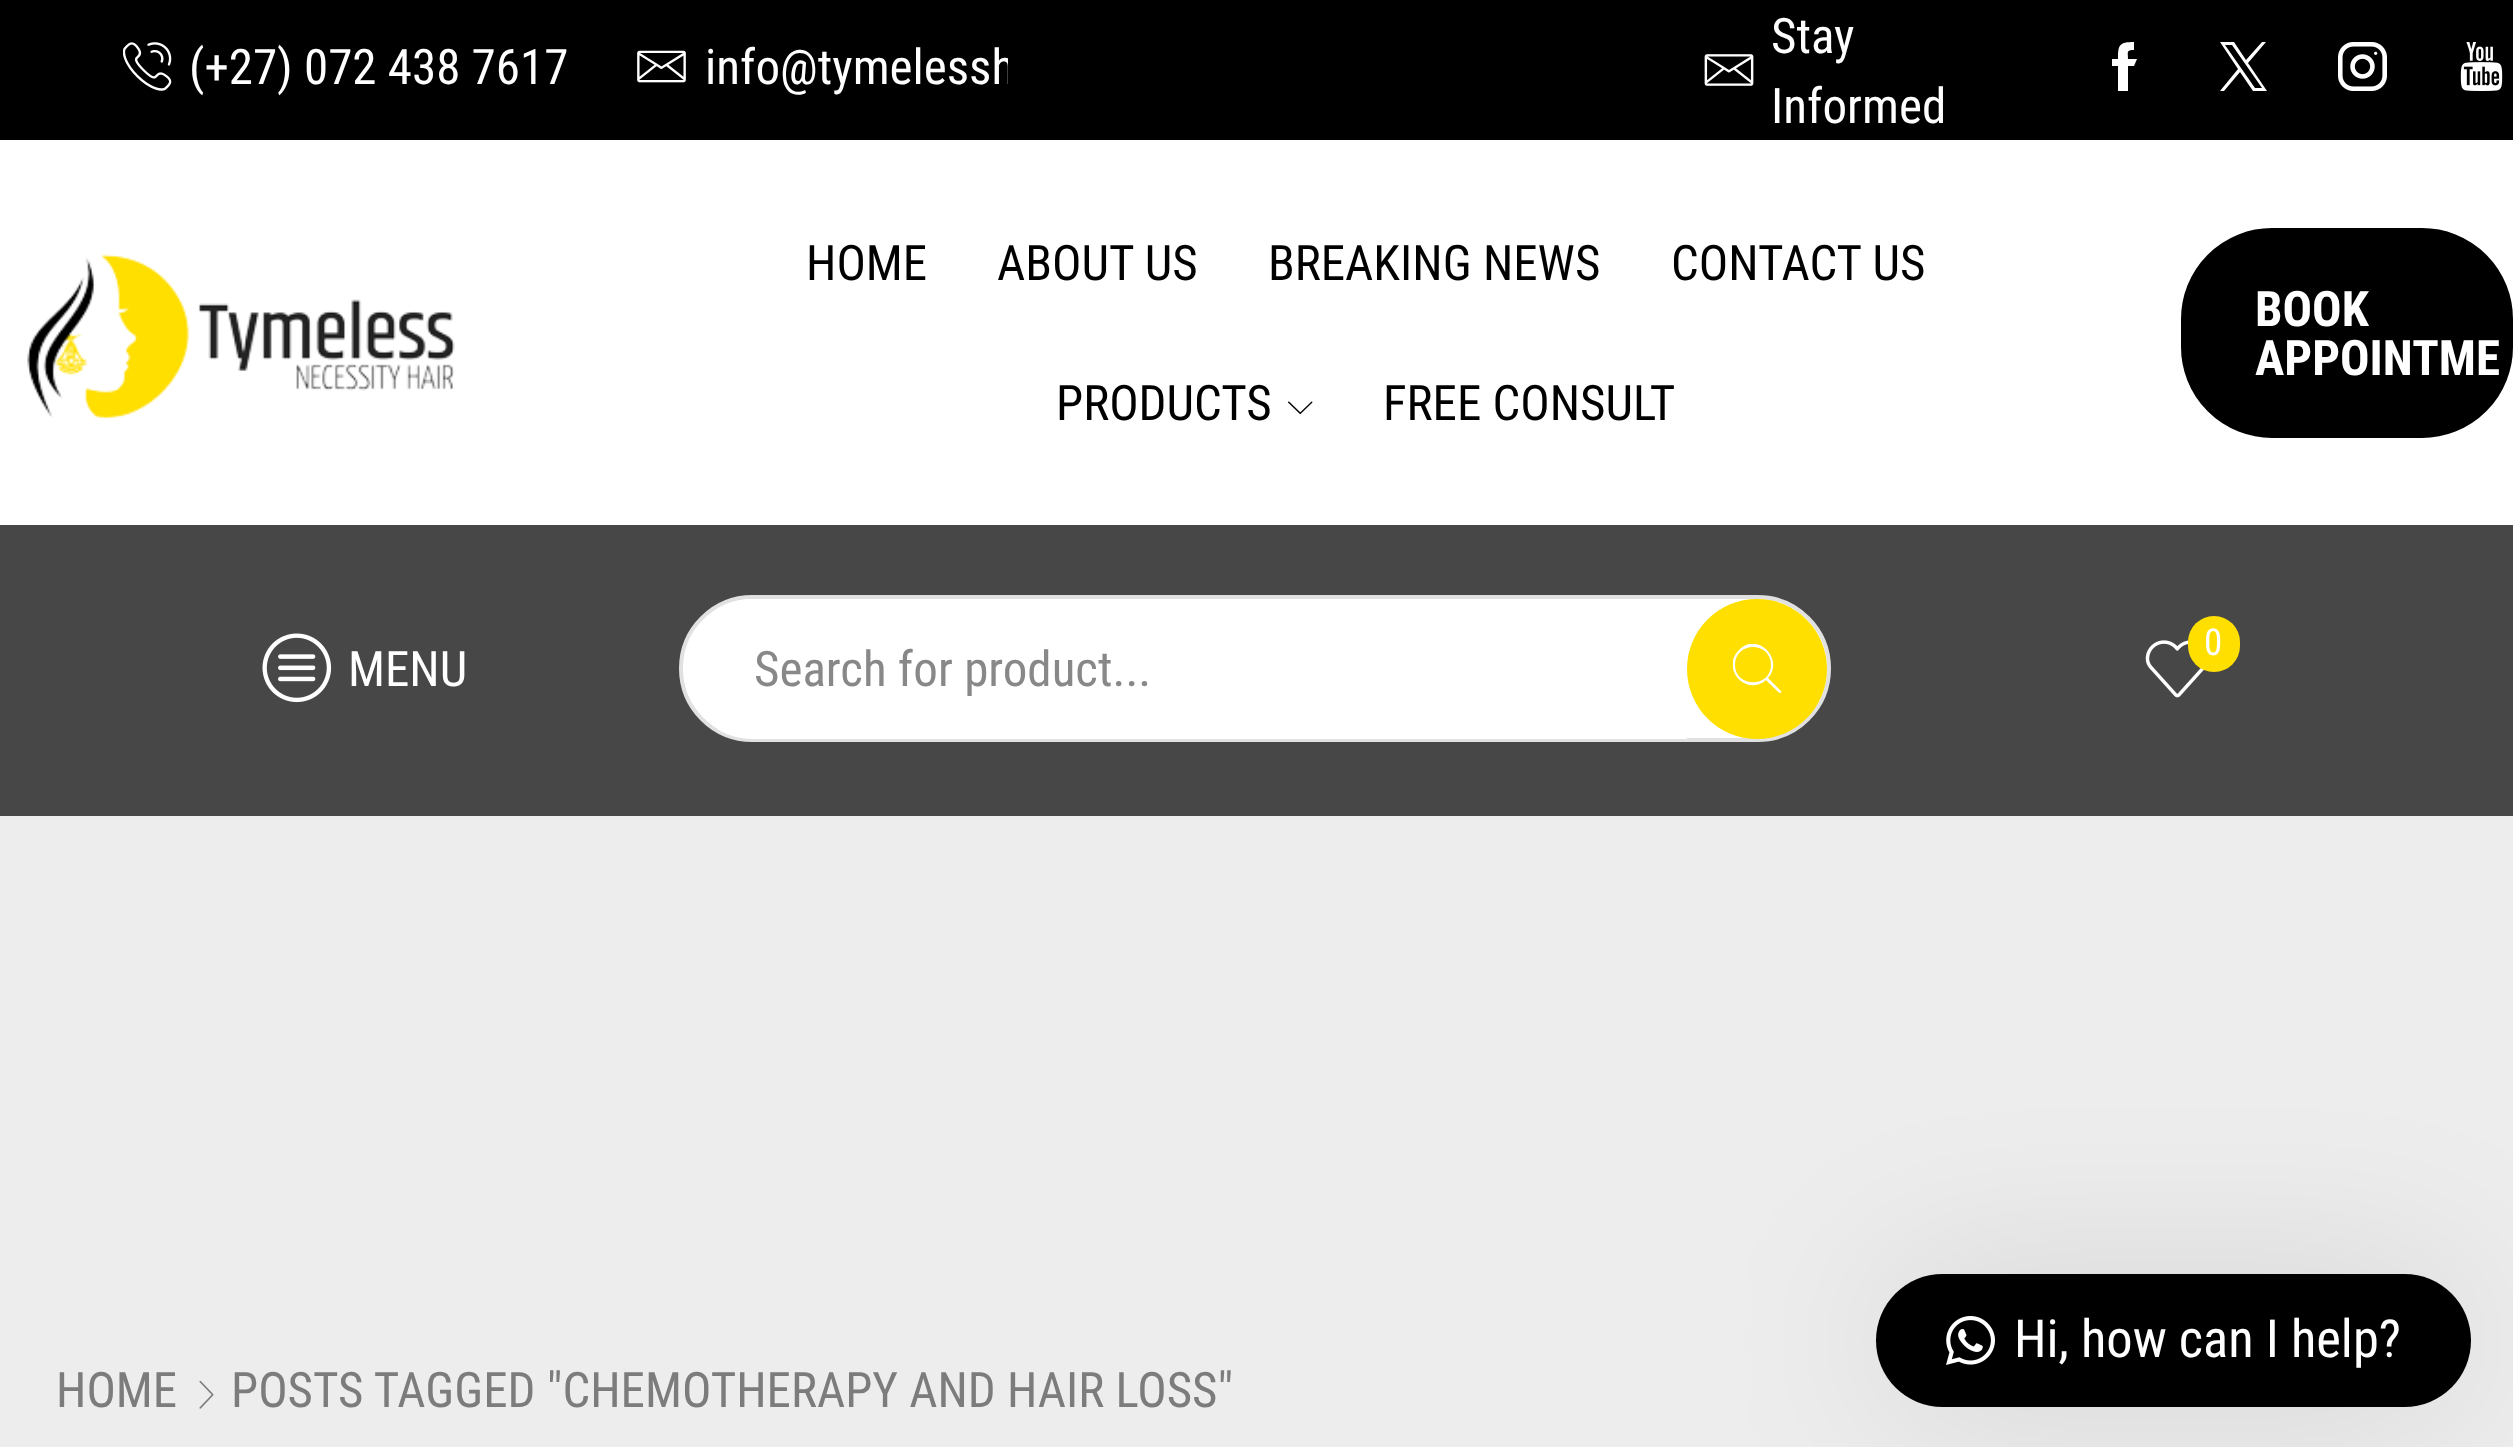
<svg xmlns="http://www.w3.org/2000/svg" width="2513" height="1447">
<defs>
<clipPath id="clip1"><rect x="123" y="32" width="885" height="70"/></clipPath>
<clipPath id="clip2"><rect x="683" y="599" width="1144" height="140" rx="70"/></clipPath>
<clipPath id="clip3"><rect x="1733" y="644" width="49" height="49"/></clipPath>
</defs>
<rect width="100%" height="100%" fill="#fff"/>
<rect width="2513" height="140" fill="#000"/>
<image x="123" y="42" width="49" height="49" href="media/1.png"/>
<text x="189" y="84" style="font-family:'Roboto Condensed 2';font-size:49px;fill:#fff">(+27) 072 438 7617</text>
<image x="637" y="50" width="49" height="33" href="media/2.png"/>
<g clip-path="url(#clip1)">
<text x="705" y="84" style="font-family:'Roboto Condensed 2';font-size:49px;fill:#fff">info@tymelessh</text>
</g>
<image x="1704" y="54" width="50" height="32" href="media/3.png"/>
<text x="1771" y="53" style="font-family:'Roboto Condensed 2';font-size:49px;fill:#fff">Stay</text>
<text x="1771" y="123" style="font-family:'Roboto Condensed 2';font-size:49px;fill:#fff">Informed</text>
<path d="M2128 59c0-7-2-9 6-9v-8c-15 0-16 3-16 17h-6v7h6v25h10v-25h6l3-7z" fill="#fff"/>
<path d="M2220 91h4l16-19l13 19h14l-19-28l18-21h-4l-16 18l-12-18h-14l18 27zm5-46h7l30 43h-7z" fill="#fff"/>
<image x="2338" y="42" width="49" height="49" href="media/4.png"/>
<image x="2460" y="42" width="43" height="49" href="media/5.png"/>
<image x="27" y="254" width="428" height="164" href="media/6.png"/>
<text x="806" y="280" style="font-family:'Roboto Condensed 2';font-size:49px;fill:#000">HOME</text>
<text x="997" y="280" style="font-family:'Roboto Condensed 2';font-size:49px;fill:#000">ABOUT US</text>
<text x="1268" y="280" style="font-family:'Roboto Condensed 2';font-size:49px;fill:#000">BREAKING NEWS</text>
<text x="1671" y="280" style="font-family:'Roboto Condensed 2';font-size:49px;fill:#000">CONTACT US</text>
<text x="1056" y="420" style="font-family:'Roboto Condensed 2';font-size:49px;fill:#000">PRODUCTS</text>
<image x="1288" y="401" width="25" height="13" href="media/7.png"/>
<text x="1383" y="420" style="font-family:'Roboto Condensed 2';font-size:49px;fill:#000">FREE CONSULT</text>
<rect x="2183" y="230" width="328" height="206" rx="89" fill="#000" stroke="#000" stroke-width="4"/>
<text x="2255" y="326" style="font-family:Roboto Condensed;font-size:49px;font-weight:bold;fill:#fff">BOOK</text>
<text x="2255" y="375" style="font-family:Roboto Condensed;font-size:49px;font-weight:bold;fill:#fff">APPOINTME</text>
<rect y="525" width="2513" height="291" fill="#474747"/>
<image x="2145" y="640" width="59" height="58" href="media/8.png"/>
<rect x="2188" y="616" width="52" height="56" rx="26" fill="#ffdf00"/>
<text x="2204" y="655" style="font-family:'Roboto Condensed 2';font-size:37px;fill:#fff">0</text>
<image x="262" y="633" width="70" height="70" href="media/9.png"/>
<text x="348" y="686" style="font-family:'Roboto Condensed 2';font-size:49px;fill:#fff">MENU</text>
<rect x="681" y="597" width="1148" height="143" rx="71.5" fill="#fff" stroke="#e1e1e1" stroke-width="4"/>
<g clip-path="url(#clip2)">
<rect x="718" y="599" width="969" height="140" fill="#fff"/>
</g>
<text x="754" y="686" style="font-family:'Roboto Condensed 2';font-size:49px;fill:#888">Search for product...</text>
<circle cx="1757" cy="669" r="70" fill="#ffdf00"/>
<g clip-path="url(#clip3)">
<path d="M1781 691l-13-13c17-19-11-47-29-28c-19 19 8 47 27 30c2 2 13 13 14 13c1 0 2-2 1-2zm-10-26c0 23-36 23-36 0c0-24 36-24 36 0z" fill="#fff"/>
</g>
<rect y="816" width="2513" height="631" fill="#ededed"/>
<text x="56" y="1407" style="font-family:Roboto Condensed;font-size:49px;fill:#7c7c7c">HOME</text>
<image x="199" y="1380" width="15" height="29" href="media/10.png"/>
<text x="231" y="1407" style="font-family:Roboto Condensed;font-size:49px;fill:#7c7c7c">POSTS TAGGED "CHEMOTHERAPY AND HAIR LOSS"</text>
<rect x="1876" y="1274" width="595" height="133" rx="66.5" fill="#0000001a" filter="blur(87.5px)"/>
<rect x="1876" y="1274" width="595" height="133" rx="66.5" fill="#000"/>
<image x="1946" y="1316" width="49" height="49" href="media/11.png"/>
<text x="2014" y="1357" style="font-family:'Roboto Condensed 2';font-size:52.5px;fill:#fff">Hi, how can I help?</text>
</svg>
